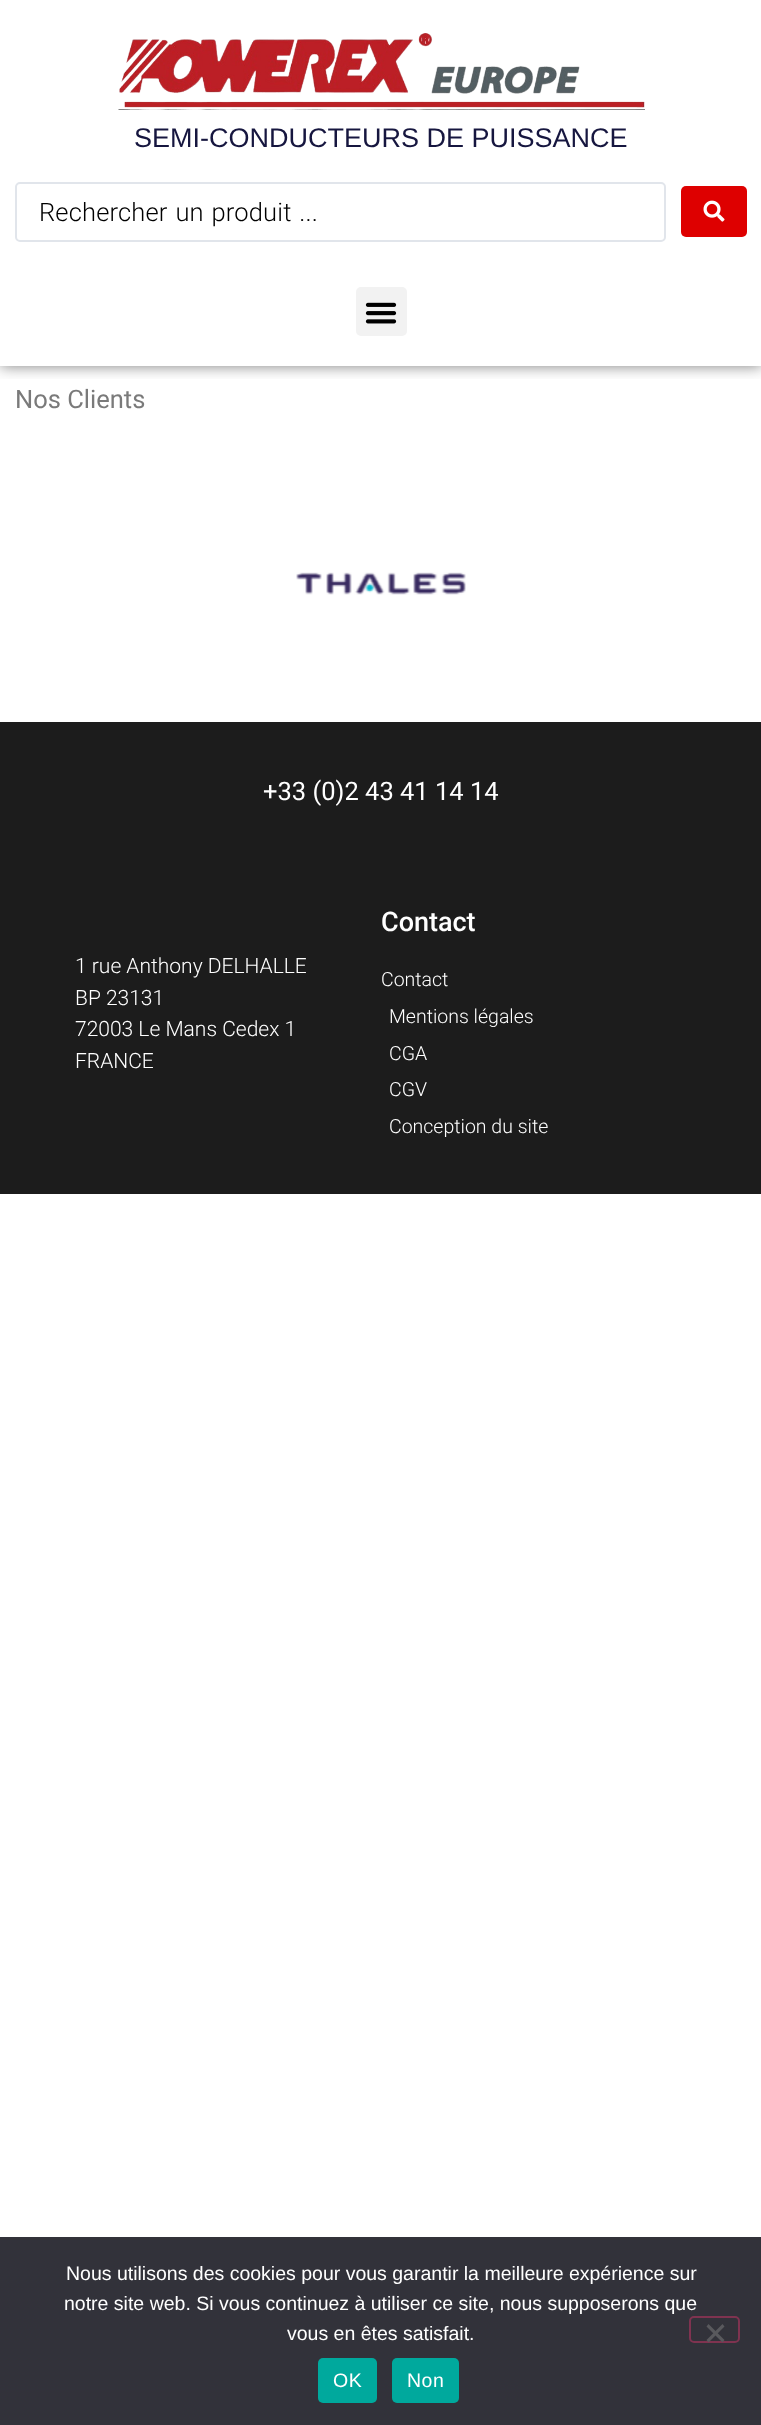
<svg xmlns="http://www.w3.org/2000/svg" width="761" height="2425">
<defs>
<clipPath id="clip1"><rect x="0" y="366" width="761" height="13"/></clipPath>
</defs>
<rect width="100%" height="100%" fill="#fff"/>
<g clip-path="url(#clip1)">
<rect width="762" height="366" fill="#00000080" filter="blur(7.5px)"/>
</g>
<image x="118" y="33" width="527" height="77" href="media/1.png"/>
<text x="134" y="147" style="font-family:Liberation Sans;font-size:27px;fill:#16163f">SEMI-CONDUCTEURS DE PUISSANCE</text>
<rect x="16" y="183" width="649" height="58" rx="4" fill="none" stroke="#e1e5eb" stroke-width="2"/>
<text x="39" y="221" word-spacing="1.5" style="font-family:Roboto;font-size:25.5px;font-weight:300;letter-spacing:0.15px;fill:#000">Rechercher un produit ...</text>
<rect x="681" y="186" width="66" height="51" rx="5" fill="#de0000"/>
<image x="703" y="200" width="22" height="22" href="media/2.png"/>
<rect x="356" y="287" width="51" height="49" rx="5" fill="#f2f2f2"/>
<image x="365" y="302" width="32" height="22" href="media/3.png"/>
<text x="15" y="408" style="font-family:Roboto;font-size:25.5px;fill:#7a7a7a">Nos Clients</text>
<image x="296" y="572" width="170" height="23" href="media/4.png"/>
<rect y="722" width="761" height="472" fill="#1c1c1c"/>
<text x="263" y="800" style="font-family:Roboto;font-size:25.5px;fill:#fff">+33 (0)2 43 41 14 14</text>
<text x="75" y="973" style="font-family:Roboto;font-size:21px;font-weight:300;fill:#fff">1 rue Anthony DELHALLE</text>
<text x="75" y="1005" style="font-family:Roboto;font-size:21px;font-weight:300;fill:#fff">BP 23131</text>
<text x="75" y="1036" style="font-family:Roboto;font-size:21px;font-weight:300;fill:#fff">72003 Le Mans Cedex 1</text>
<text x="75" y="1068" style="font-family:Roboto;font-size:21px;font-weight:300;fill:#fff">FRANCE</text>
<text x="381" y="931" style="font-family:Roboto;font-size:27px;font-weight:500;fill:#fff">Contact</text>
<text x="381" y="986" style="font-family:Roboto;font-size:19.5px;font-weight:300;fill:#fff">Contact</text>
<text x="389" y="1023" style="font-family:Roboto;font-size:19.5px;font-weight:300;fill:#fff">Mentions légales</text>
<text x="389" y="1060" style="font-family:Roboto;font-size:19.5px;font-weight:300;fill:#fff">CGA</text>
<text x="389" y="1096" style="font-family:Roboto;font-size:19.5px;font-weight:300;fill:#fff">CGV</text>
<text x="389" y="1133" style="font-family:Roboto;font-size:19.5px;font-weight:300;fill:#fff">Conception du site</text>
<rect y="2237" width="761" height="188" fill="#32323a"/>
<text x="66" y="2280" style="font-family:Liberation Sans;font-size:19.5px;fill:#fff">Nous utilisons des cookies pour vous garantir la meilleure expérience sur</text>
<text x="64" y="2310" style="font-family:Liberation Sans;font-size:19.5px;fill:#fff">notre site web. Si vous continuez à utiliser ce site, nous supposerons que</text>
<text x="287" y="2340" style="font-family:Liberation Sans;font-size:19.5px;fill:#fff">vous en êtes satisfait.</text>
<rect x="690" y="2317" width="49" height="25" rx="4" fill="none" stroke="#7f3350" stroke-width="2"/>
<path d="M722.5 2324l2 2.5l-16 16l-2-2.5z" fill="#59595d"/>
<path d="M706.5 2326.5l2-2.5l16 16l-2 2.5z" fill="#59595d"/>
<rect x="318" y="2358" width="59" height="45" rx="5" fill="#00a99d"/>
<text x="333" y="2387" style="font-family:Liberation Sans;font-size:19.5px;letter-spacing:0.5px;fill:#fff">OK</text>
<rect x="392" y="2358" width="67" height="45" rx="5" fill="#00a99d"/>
<text x="407" y="2387" style="font-family:Liberation Sans;font-size:19.5px;letter-spacing:0.5px;fill:#fff">Non</text>
</svg>
